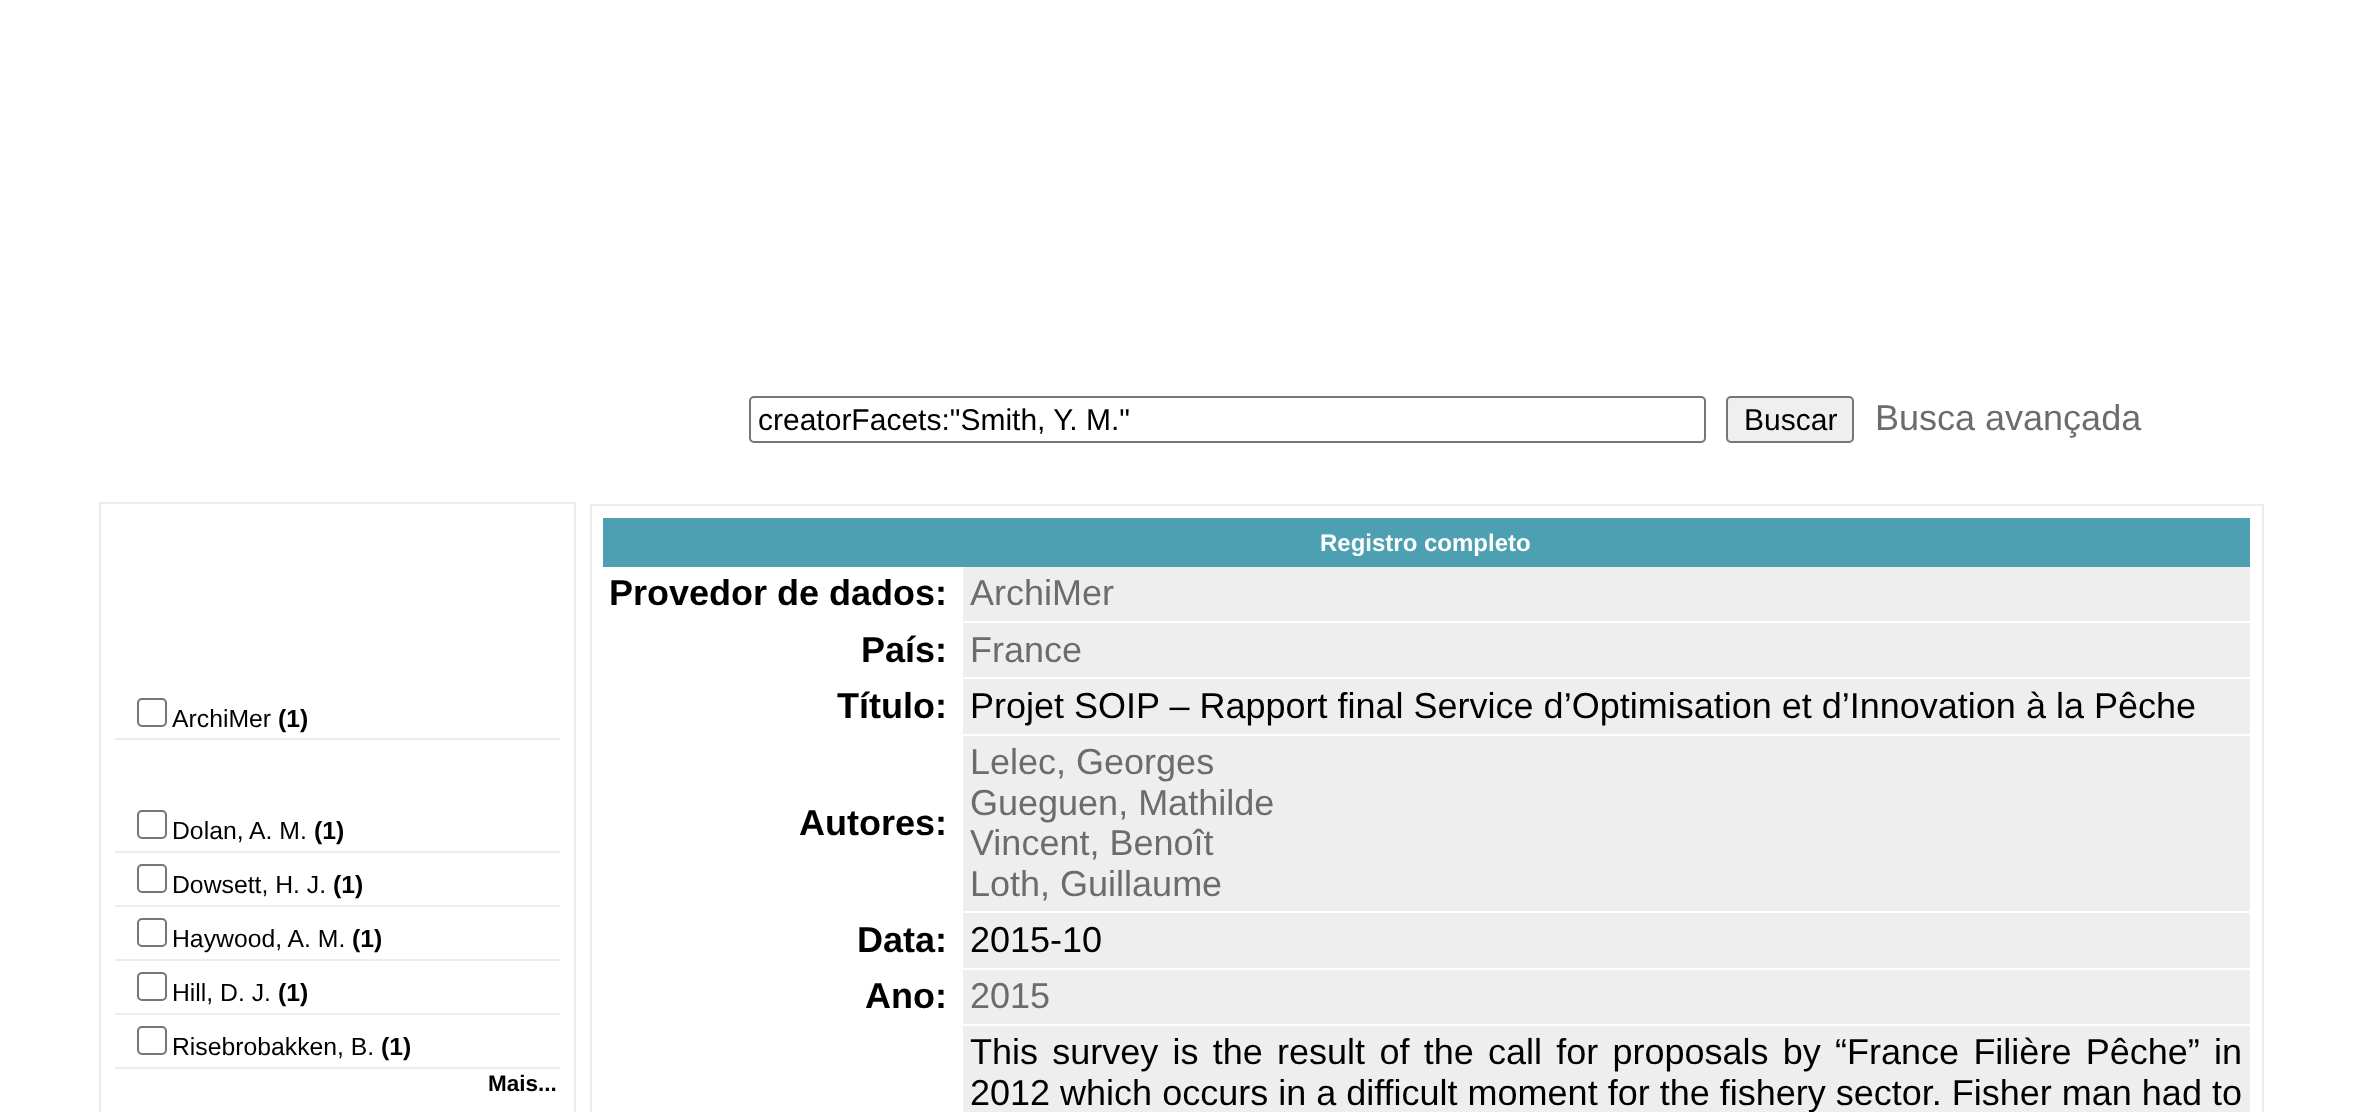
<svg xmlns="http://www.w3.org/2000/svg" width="2372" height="1112">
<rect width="100%" height="100%" fill="#fff"/>
<rect x="750" y="397" width="955" height="45" rx="4" fill="none" stroke="#767676" stroke-width="2"/>
<text x="758" y="430" style="font-family:Liberation Sans;font-size:30px;fill:#000">creatorFacets:"Smith, Y. M."</text>
<rect x="1727" y="397" width="126" height="45" rx="4" fill="#efefef" stroke="#767676" stroke-width="2"/>
<text x="1744" y="430" style="font-family:Liberation Sans;font-size:30px;fill:#000">Buscar</text>
<text x="1875" y="430" style="font-family:Liberation Sans;font-size:36px;fill:#6c6c6c">Busca avançada</text>
<rect x="99" y="502" width="477" height="610" fill="#ececec"/>
<rect x="101" y="504" width="473" height="608" fill="#fff"/>
<rect x="115" y="738" width="445" height="2" fill="#ececec"/>
<rect x="138" y="699" width="28" height="27" rx="4" fill="none" stroke="#767676" stroke-width="2"/>
<text x="172" y="727" style="font-family:Liberation Sans;font-size:24.75px;fill:#000">ArchiMer</text>
<text x="278" y="727" style="font-family:Liberation Sans;font-size:24.75px;font-weight:bold;fill:#000">(1)</text>
<rect x="115" y="851" width="445" height="2" fill="#ececec"/>
<rect x="138" y="811" width="28" height="27" rx="4" fill="none" stroke="#767676" stroke-width="2"/>
<text x="172" y="839" style="font-family:Liberation Sans;font-size:24.75px;fill:#000">Dolan, A. M.</text>
<text x="314" y="839" style="font-family:Liberation Sans;font-size:24.75px;font-weight:bold;fill:#000">(1)</text>
<rect x="115" y="905" width="445" height="2" fill="#ececec"/>
<rect x="138" y="865" width="28" height="27" rx="4" fill="none" stroke="#767676" stroke-width="2"/>
<text x="172" y="893" style="font-family:Liberation Sans;font-size:24.75px;fill:#000">Dowsett, H. J.</text>
<text x="333" y="893" style="font-family:Liberation Sans;font-size:24.75px;font-weight:bold;fill:#000">(1)</text>
<rect x="115" y="959" width="445" height="2" fill="#ececec"/>
<rect x="138" y="919" width="28" height="27" rx="4" fill="none" stroke="#767676" stroke-width="2"/>
<text x="172" y="947" style="font-family:Liberation Sans;font-size:24.75px;fill:#000">Haywood, A. M.</text>
<text x="352" y="947" style="font-family:Liberation Sans;font-size:24.75px;font-weight:bold;fill:#000">(1)</text>
<rect x="115" y="1013" width="445" height="2" fill="#ececec"/>
<rect x="138" y="973" width="28" height="27" rx="4" fill="none" stroke="#767676" stroke-width="2"/>
<text x="172" y="1001" style="font-family:Liberation Sans;font-size:24.75px;fill:#000">Hill, D. J.</text>
<text x="278" y="1001" style="font-family:Liberation Sans;font-size:24.75px;font-weight:bold;fill:#000">(1)</text>
<rect x="115" y="1067" width="445" height="2" fill="#ececec"/>
<rect x="138" y="1027" width="28" height="27" rx="4" fill="none" stroke="#767676" stroke-width="2"/>
<text x="172" y="1055" style="font-family:Liberation Sans;font-size:24.75px;fill:#000">Risebrobakken, B.</text>
<text x="381" y="1055" style="font-family:Liberation Sans;font-size:24.75px;font-weight:bold;fill:#000">(1)</text>
<text x="488" y="1091" style="font-family:Liberation Sans;font-size:22.5px;font-weight:bold;fill:#000">Mais...</text>
<rect x="591" y="505" width="1672" height="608" fill="none" stroke="#ececec" stroke-width="2"/>
<rect x="603" y="518" width="1647" height="49" fill="#4da0b2"/>
<text x="1320" y="551" style="font-family:Liberation Sans;font-size:24px;font-weight:bold;fill:#fff">Registro completo</text>
<text x="609" y="605" style="font-family:Liberation Sans;font-size:36px;font-weight:bold;fill:#000">Provedor de dados:</text>
<rect x="963" y="567" width="1287" height="54" fill="#eee"/>
<text x="970" y="605" style="font-family:Liberation Sans;font-size:36px;fill:#6c6c6c">ArchiMer</text>
<text x="861" y="662" style="font-family:Liberation Sans;font-size:36px;font-weight:bold;fill:#000">País:</text>
<rect x="963" y="623" width="1287" height="111" fill="#eee"/>
<rect x="963" y="677" width="1287" height="2" fill="#fff"/>
<text x="970" y="662" style="font-family:Liberation Sans;font-size:36px;fill:#6c6c6c">France</text>
<text x="837" y="718" style="font-family:Liberation Sans;font-size:36px;font-weight:bold;fill:#000">Título:</text>
<text x="970" y="718" style="font-family:Liberation Sans;font-size:36px;fill:#000">Projet SOIP – Rapport final Service d’Optimisation et d’Innovation à la Pêche</text>
<text x="799" y="835" style="font-family:Liberation Sans;font-size:36px;font-weight:bold;fill:#000">Autores:</text>
<rect x="963" y="736" width="1287" height="232" fill="#eee"/>
<rect x="963" y="911" width="1287" height="2" fill="#fff"/>
<text x="970" y="774" style="font-family:Liberation Sans;font-size:36px;fill:#6c6c6c">Lelec, Georges</text>
<text x="970" y="815" style="font-family:Liberation Sans;font-size:36px;fill:#6c6c6c">Gueguen, Mathilde</text>
<text x="970" y="855" style="font-family:Liberation Sans;font-size:36px;fill:#6c6c6c">Vincent, Benoît</text>
<text x="970" y="896" style="font-family:Liberation Sans;font-size:36px;fill:#6c6c6c">Loth, Guillaume</text>
<text x="857" y="952" style="font-family:Liberation Sans;font-size:36px;font-weight:bold;fill:#000">Data:</text>
<text x="970" y="952" style="font-family:Liberation Sans;font-size:36px;fill:#000">2015-10</text>
<text x="865" y="1008" style="font-family:Liberation Sans;font-size:36px;font-weight:bold;fill:#000">Ano:</text>
<rect x="963" y="970" width="1287" height="54" fill="#eee"/>
<text x="970" y="1008" style="font-family:Liberation Sans;font-size:36px;fill:#6c6c6c">2015</text>
<rect x="963" y="1026" width="1287" height="86" fill="#eee"/>
<text x="970" y="1064" word-spacing="4.25" style="font-family:Liberation Sans;font-size:36px;fill:#000">This survey is the result of the call for proposals by “France Filière Pêche” in</text>
<text x="970" y="1105" style="font-family:Liberation Sans;font-size:36px;fill:#000">2012 which occurs in a difficult moment for the fishery sector. Fisher man had to</text>
</svg>
